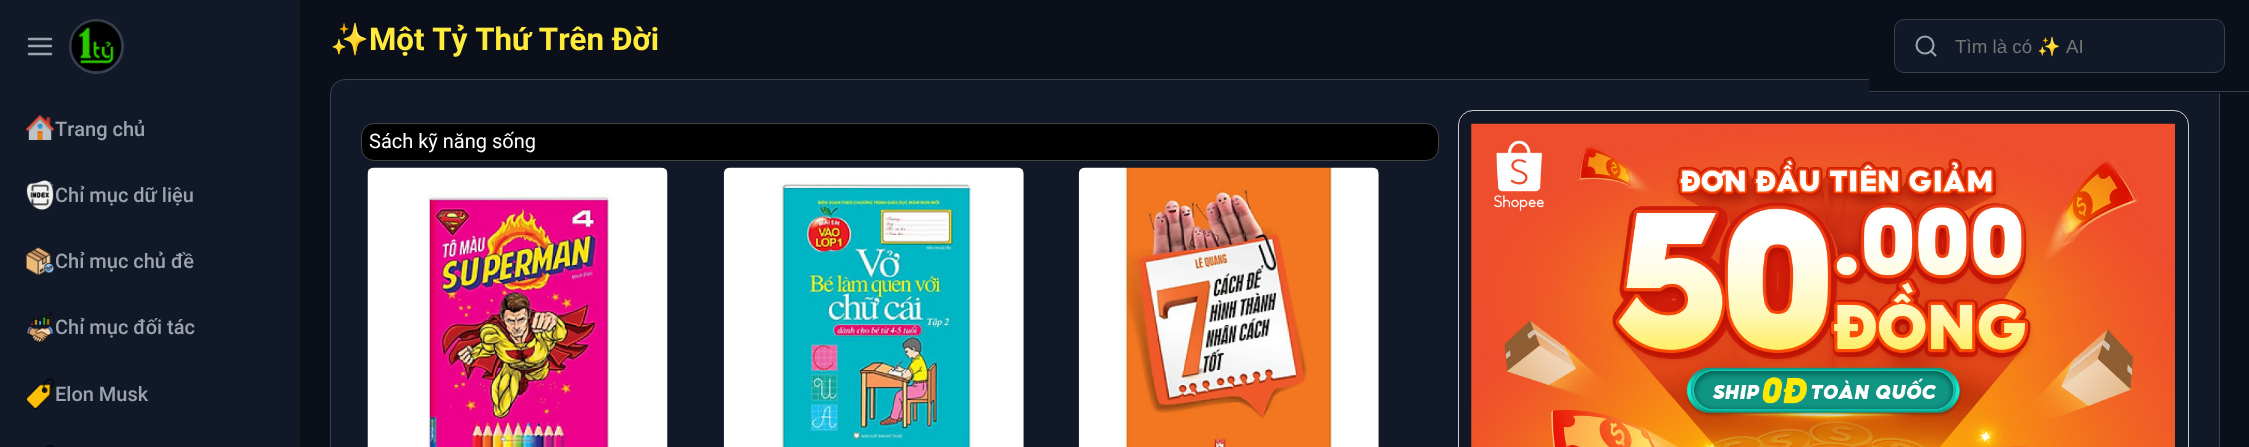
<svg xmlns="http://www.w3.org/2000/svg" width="2249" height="447">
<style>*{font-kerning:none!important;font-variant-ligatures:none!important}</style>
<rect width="100%" height="100%" fill="#0b0f19"/>
<rect width="300" height="447" fill="#111827"/>
<circle cx="96.5" cy="46.5" r="26" fill="none" stroke="#374151" stroke-width="3"/>
<image x="70" y="20" width="52" height="52" href="media/1.png"/>
<text x="330" y="50" style="font-family:Noto Color Emoji;font-size:31.25px;font-weight:bold;fill:#ffeb3b">✨</text>
<text x="369" y="50" style="font-family:Roboto;font-size:31.25px;font-weight:bold;fill:#ffeb3b">Một Tỷ Thứ Trên Đời</text>
<path d="M345 79h1860c8.5 0 15 6.5 15 15v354h-1890v-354c0-8.5 6.5-15 15-15z" fill="#111827"/>
<rect x="330.5" y="79.5" width="1889" height="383" rx="14.5" fill="none" stroke="#374151"/>
<rect x="361.5" y="123.5" width="1077" height="37" rx="12.5" fill="#000" stroke="#444"/>
<text x="369" y="148" style="font-family:Roboto;font-size:20px;fill:#fff">Sách kỹ năng sống</text>
<image x="367" y="167" width="301" height="280" href="media/2.png"/>
<image x="723" y="167" width="301" height="280" href="media/3.png"/>
<image x="1078" y="167" width="301" height="280" href="media/4.png"/>
<rect x="1458.5" y="110.5" width="730" height="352" rx="14.5" fill="none" stroke="#ccc"/>
<image x="1471" y="123" width="704" height="324" href="media/5.png"/>
<rect x="1869" y="79" width="351" height="14" fill="#0b0f19"/>
<rect x="1869" y="91" width="380" height="1" fill="#374151"/>
<rect x="1894.5" y="19.5" width="330" height="53" rx="9.5" fill="#111827" stroke="#374151"/>
<circle cx="1925" cy="45" r="8.5" fill="none" stroke="#9ca3af" stroke-width="2.1"/>
<path d="M1935.5 55.5l-4.5-4.5" fill="none" stroke="#9ca3af" stroke-width="2.1" stroke-linecap="round" stroke-linejoin="round"/>
<text x="1955" y="53" style="font-family:Liberation Sans;font-size:18.75px;fill:#757575">Tìm là có</text>
<text x="2037" y="53" style="font-family:Noto Color Emoji;font-size:18.75px;fill:#757575">✨</text>
<text x="2066" y="53" style="font-family:Liberation Sans;font-size:18.75px;fill:#757575">AI</text>
<path d="M29 46h22m-22-7h22m-22 15h22" fill="none" stroke="#9ca3af" stroke-width="2.5" stroke-linecap="round" stroke-linejoin="round"/>
<image x="26" y="114" width="29" height="26" href="media/6.png"/>
<text x="55" y="136" style="font-family:Roboto;font-size:20px;font-weight:500;fill:#9ca3af">Trang chủ</text>
<image x="26" y="180" width="28" height="30" href="media/7.png"/>
<text x="55" y="202" style="font-family:Roboto;font-size:20px;font-weight:500;fill:#9ca3af">Chỉ mục dữ liệu</text>
<image x="25" y="247" width="30" height="29" href="media/8.png"/>
<text x="55" y="268" style="font-family:Roboto;font-size:20px;font-weight:500;fill:#9ca3af">Chỉ mục chủ đề</text>
<image x="26" y="312" width="28" height="31" href="media/9.png"/>
<text x="55" y="334" style="font-family:Roboto;font-size:20px;font-weight:500;fill:#9ca3af">Chỉ mục đối tác</text>
<image x="26" y="378" width="28" height="31" href="media/10.png"/>
<text x="55" y="401" style="font-family:Roboto;font-size:20px;font-weight:500;fill:#9ca3af">Elon Musk</text>
<image x="46" y="445" width="8" height="2" href="media/11.png"/>
</svg>
